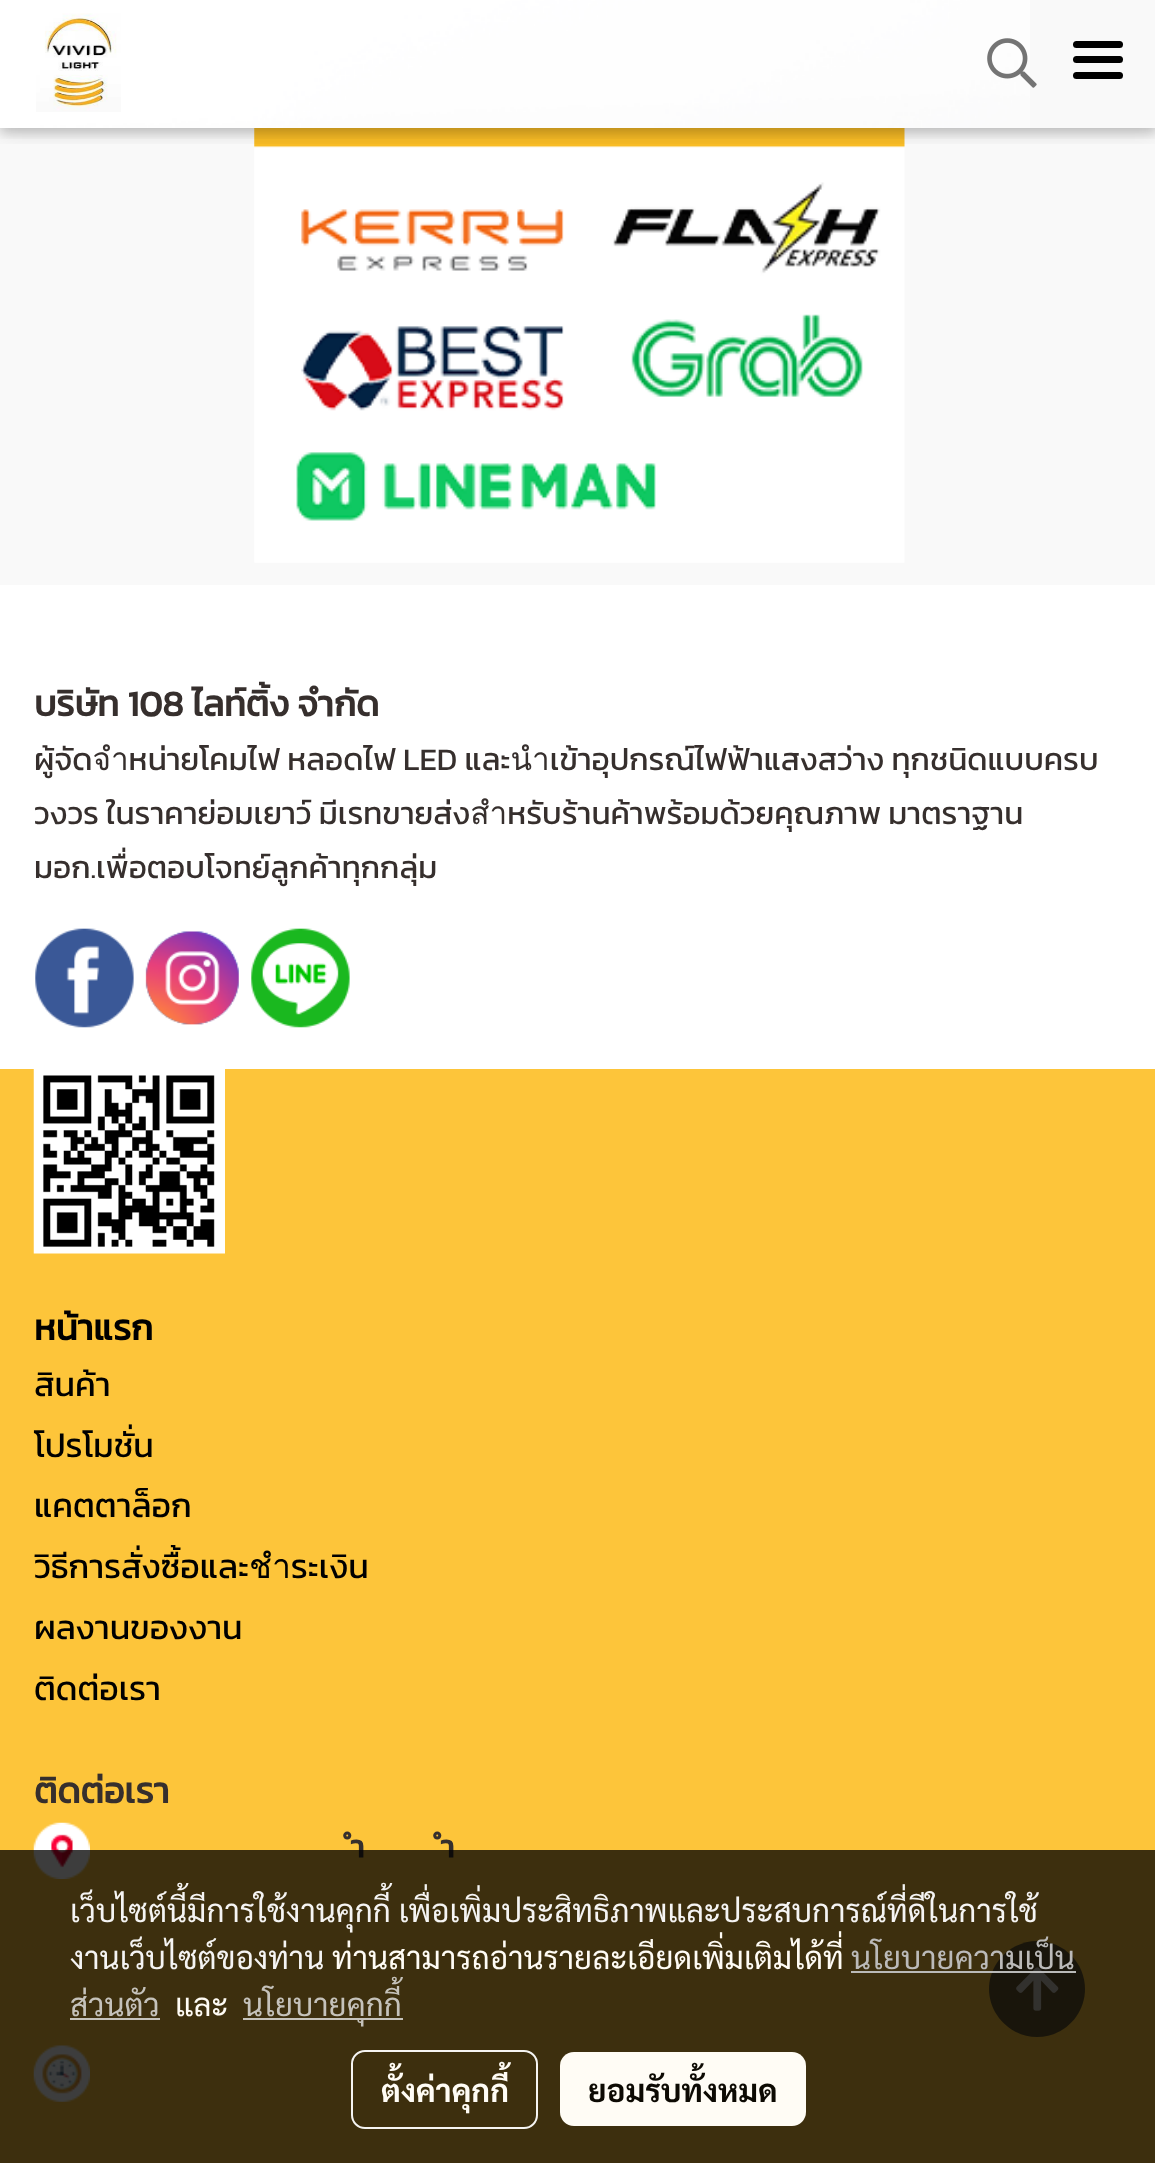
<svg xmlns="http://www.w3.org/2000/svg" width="1155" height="2163">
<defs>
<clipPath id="clip1"><rect x="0" y="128" width="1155" height="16"/></clipPath>
<clipPath id="clip2"><rect x="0" y="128" width="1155" height="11"/></clipPath>
</defs>
<rect width="100%" height="100%" fill="#fff"/>
<rect width="1155" height="585" fill="#f9f9f9"/>
<image x="254" y="128" width="651" height="435" href="media/1.png"/>
<g clip-path="url(#clip1)">
<rect y="5" width="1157" height="128" fill="#0000001f" filter="blur(11px)"/>
</g>
<g clip-path="url(#clip2)">
<rect y="5" width="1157" height="128" fill="#00000029" filter="blur(5.5px)"/>
</g>
<image x="0" y="0" width="1030" height="128" href="media/2.png"/>
<image x="36" y="13" width="85" height="99" href="media/3.png"/>
<image x="987" y="38" width="50" height="50" href="media/4.png"/>
<rect x="1073" y="56" width="50" height="7" rx="3.5" fill="#000"/>
<rect x="1073" y="41" width="50" height="7" rx="3.5" fill="#000"/>
<rect x="1073" y="72" width="50" height="7" rx="3.5" fill="#000"/>
<rect y="1069" width="1155" height="1094" fill="#fdc53a"/>
<text x="34" y="716" style="font-family:Kanit;font-size:36px;font-weight:bold;fill:#362f2d">บริษัท 108 ไลท์ติ้ง จำกัด</text>
<text x="34" y="770" style="font-family:Kanit;font-size:31.5px;fill:#362f2d">ผู้จัดจำหน่ายโคมไฟ หลอดไฟ LED และนำเข้าอุปกรณ์ไฟฟ้าแสงสว่าง ทุกชนิดแบบครบ</text>
<text x="34" y="824" style="font-family:Kanit;font-size:31.5px;fill:#362f2d">วงวร ในราคาย่อมเยาว์ มีเรทขายส่งสำหรับร้านค้าพร้อมด้วยคุณภาพ มาตราฐาน</text>
<text x="34" y="878" style="font-family:Kanit;font-size:31.5px;fill:#362f2d">มอก.เพื่อตอบโจทย์ลูกค้าทุกกลุ่ม</text>
<image x="35" y="928" width="99" height="100" href="media/5.png"/>
<image x="145" y="931" width="94" height="94" href="media/6.png"/>
<image x="251" y="928" width="99" height="100" href="media/7.png"/>
<image x="33" y="1069" width="192" height="185" href="media/8.png"/>
<text x="34" y="1340" style="font-family:Kanit;font-size:36px;font-weight:bold;fill:#000">หน้าแรก</text>
<text x="34" y="1396" style="font-family:Kanit;font-size:33.75px;fill:#000">สินค้า</text>
<text x="34" y="1457" style="font-family:Kanit;font-size:33.75px;fill:#000">โปรโมชั่น</text>
<text x="34" y="1517" style="font-family:Kanit;font-size:33.75px;fill:#000">แคตตาล็อก</text>
<text x="34" y="1578" style="font-family:Kanit;font-size:33.75px;fill:#000">วิธีการสั่งซื้อและชำระเงิน</text>
<text x="34" y="1639" style="font-family:Kanit;font-size:33.75px;fill:#000">ผลงานของงาน</text>
<text x="34" y="1700" style="font-family:Kanit;font-size:33.75px;fill:#000">ติดต่อเรา</text>
<text x="34" y="1803" style="font-family:Kanit;font-size:36px;font-weight:bold;fill:#362f2d">ติดต่อเรา</text>
<image x="33" y="1822" width="57" height="57" href="media/9.png"/>
<text x="351" y="1857" style="font-family:Kanit;font-size:31.5px;font-weight:bold;fill:#362f2d">ำ</text>
<text x="441" y="1857" style="font-family:Kanit;font-size:31.5px;font-weight:bold;fill:#362f2d">ำ</text>
<image x="33" y="2045" width="57" height="57" href="media/10.png"/>
<path d="M1037 1941c-26 0-48 22-48 48c0 26 22 48 48 48c27 0 48-22 48-48c0-26-21-48-48-48z" fill="#6a592f"/>
<image x="1016" y="1967" width="43" height="44" href="media/11.png"/>
<rect y="1850" width="1155" height="313" fill="#000000c2"/>
<text x="70" y="1922" style="font-family:Sarabun;font-size:31.5px;fill:#f5f4f3">เว็บไซต์นี้มีการใช้งานคุกกี้ เพื่อเพิ่มประสิทธิภาพและประสบการณ์ที่ดีในการใช้</text>
<text x="70" y="1969" style="font-family:Sarabun;font-size:31.5px;fill:#f5f4f3">งานเว็บไซต์ของท่าน</text>
<text x="332" y="1969" style="font-family:Sarabun;font-size:31.5px;fill:#fffcf5">ท่านสามารถอ่านรายละเอียดเพิ่มเติมได้ที่</text>
<text x="851" y="1969" style="font-family:Sarabun;font-size:31.5px;fill:#bbbab9">นโยบายความเป็น</text>
<rect x="851" y="1971" width="225" height="2" fill="#c2c2c2f2"/>
<text x="70" y="2016" style="font-family:Sarabun;font-size:31.5px;fill:#c5c2bb">ส่วนตัว</text>
<rect x="70" y="2018" width="90" height="2" fill="#c5c2bb"/>
<text x="175" y="2016" style="font-family:Sarabun;font-size:31.5px;fill:#fffcf5">และ</text>
<rect x="243" y="2018" width="160" height="2" fill="#c5c2bb"/>
<text x="243" y="2016" style="font-family:Sarabun;font-size:31.5px;fill:#c5c2bb">นโยบายคุกกี้</text>
<rect x="352" y="2051" width="185" height="77" rx="13" fill="none" stroke="#fffffff2" stroke-width="2"/>
<text x="381" y="2102" style="font-family:Sarabun;font-size:31.5px;font-weight:bold;fill:#fffcf5">ตั้งค่าคุกกี้</text>
<rect x="560" y="2052" width="246" height="74" rx="14" fill="#fffcf5"/>
<text x="588" y="2102" style="font-family:Sarabun;font-size:31.5px;font-weight:bold;fill:#0d0a03">ยอมรับทั้งหมด</text>
</svg>
